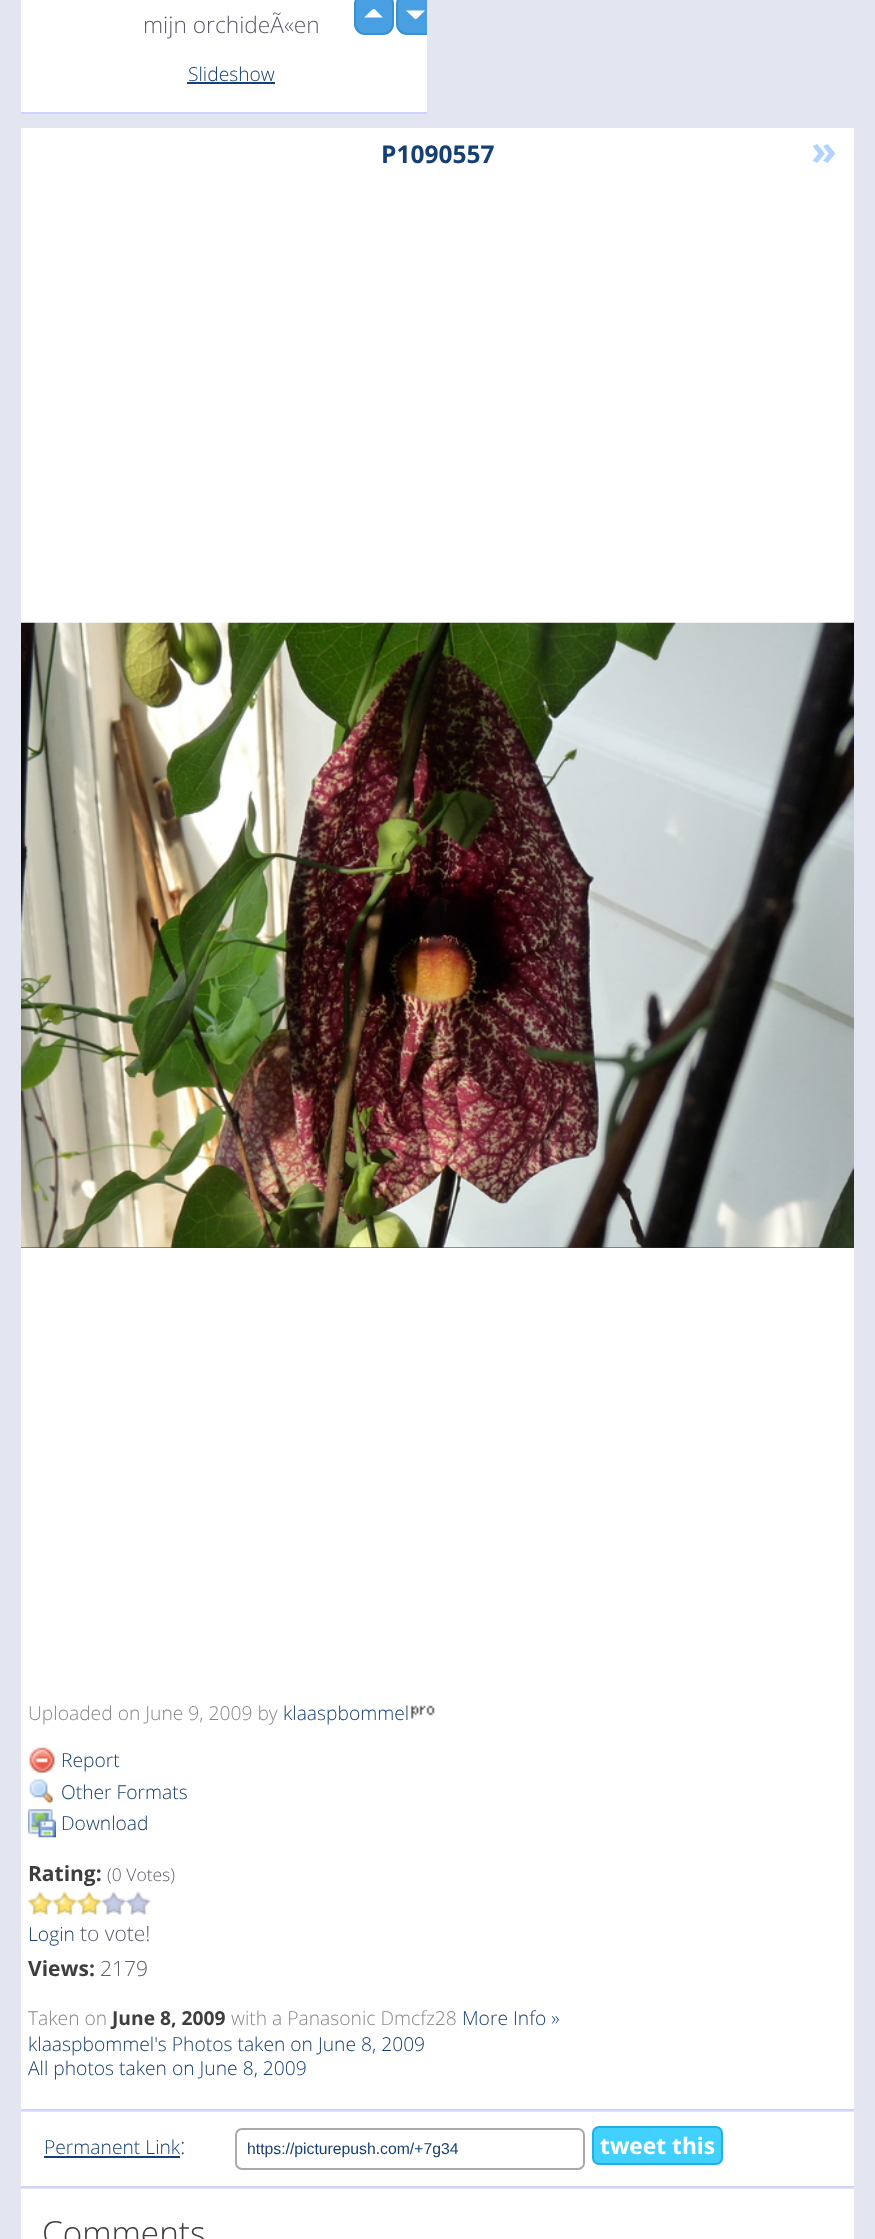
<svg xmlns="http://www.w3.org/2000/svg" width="875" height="2239">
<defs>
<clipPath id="clip1"><rect x="21" width="406" height="128"/></clipPath>
</defs>
<rect width="100%" height="100%" fill="#e3e6f1"/>
<rect x="21" y="112" width="406" height="2" fill="#cfd4ff"/>
<rect x="21" width="406" height="112" fill="#fff"/>
<text x="143" y="33" style="font-family:Open Sans;font-size:22.75px;font-weight:300;fill:#5a5c6c">mijn orchideÃ«en</text>
<text x="188" y="81" style="font-family:Open Sans;font-size:19.25px;font-weight:300;fill:#163f73">Slideshow</text>
<rect x="187" y="82" width="88" height="2" fill="#163f73"/>
<rect x="355" y="-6" width="38" height="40" rx="10" fill="#48a0e3" stroke="#3890d3" stroke-width="2"/>
<g clip-path="url(#clip1)">
<rect x="397" y="-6" width="38" height="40" rx="10" fill="#48a0e3" stroke="#3890d3" stroke-width="2"/>
</g>
<path d="M383 17.5h-19l9-8.5h1.5zm23-7h19l-8.5 8.5h-1.5z" fill="#fff"/>
<rect x="21" y="128" width="833" height="1981" fill="#fff"/>
<rect x="21" y="2109" width="833" height="2" fill="#cfd4ff"/>
<text x="381" y="163" style="font-family:Open Sans;font-size:24.5px;font-weight:bold;fill:#163f73">P1090557</text>
<text x="811" y="165" style="font-family:Open Sans;font-size:42px;font-weight:bold;fill:#b0d4fe">»</text>
<rect x="21" y="1247" width="833" height="1" fill="#333"/>
<image x="21" y="622" width="833" height="626" href="media/1.png"/>
<text x="28" y="1720" style="font-family:Open Sans;font-size:19.25px;font-weight:300;fill:#888">Uploaded on June 9, 2009 by</text>
<text x="283" y="1720" style="font-family:Open Sans;font-size:19.25px;font-weight:300;fill:#163f73">klaaspbommel</text>
<image x="410" y="1705" width="25" height="14" href="media/2.png"/>
<image x="29" y="1747" width="26" height="26" href="media/3.png"/>
<text x="61" y="1767" style="font-family:Open Sans;font-size:19.25px;font-weight:300;fill:#163f73">Report</text>
<image x="29" y="1779" width="24" height="25" href="media/4.png"/>
<text x="61" y="1799" style="font-family:Open Sans;font-size:19.25px;font-weight:300;fill:#163f73">Other Formats</text>
<image x="28" y="1809" width="28" height="29" href="media/5.png"/>
<text x="61" y="1830" style="font-family:Open Sans;font-size:19.25px;font-weight:300;fill:#163f73">Download</text>
<text x="28" y="1881" style="font-family:Open Sans;font-size:21px;font-weight:bold;fill:#3e3e41">Rating:</text>
<text x="107" y="1881" style="font-family:Open Sans;font-size:17.5px;font-weight:300;fill:#5a5c6c">(0 Votes)</text>
<image x="28" y="1891" width="25" height="24" href="media/6.png"/>
<image x="52" y="1891" width="25" height="24" href="media/7.png"/>
<image x="77" y="1891" width="25" height="24" href="media/8.png"/>
<image x="101" y="1891" width="25" height="24" href="media/9.png"/>
<image x="126" y="1891" width="25" height="24" href="media/10.png"/>
<text x="28" y="1941" style="font-family:Open Sans;font-size:19.25px;font-weight:300;fill:#163f73">Login</text>
<text x="80" y="1941" style="font-family:Open Sans;font-size:21px;font-weight:300;fill:#5a5c6c">to vote!</text>
<text x="28" y="1976" style="font-family:Open Sans;font-size:21px;font-weight:bold;fill:#3e3e41">Views:</text>
<text x="100" y="1976" style="font-family:Open Sans;font-size:21px;font-weight:300;fill:#5a5c6c">2179</text>
<text x="28" y="2025" style="font-family:Open Sans;font-size:19.25px;font-weight:300;fill:#888">Taken on</text>
<text x="112" y="2025" style="font-family:Open Sans;font-size:19.25px;font-weight:bold;fill:#3e3e41">June 8, 2009</text>
<text x="231" y="2025" style="font-family:Open Sans;font-size:19.25px;font-weight:300;fill:#888">with a Panasonic Dmcfz28</text>
<text x="462" y="2025" style="font-family:Open Sans;font-size:19.25px;font-weight:300;fill:#163f73">More Info »</text>
<text x="28" y="2051" style="font-family:Open Sans;font-size:19.25px;font-weight:300;fill:#163f73">klaaspbommel's Photos taken on June 8, 2009</text>
<text x="28" y="2075" style="font-family:Open Sans;font-size:19.25px;font-weight:300;fill:#163f73">All photos taken on June 8, 2009</text>
<rect x="21" y="2112" width="833" height="74" fill="#fff"/>
<rect x="21" y="2186" width="833" height="2" fill="#cfd4ff"/>
<text x="44" y="2154" style="font-family:Open Sans;font-size:19.25px;font-weight:300;fill:#163f73">Permanent Link</text>
<rect x="44" y="2156" width="136" height="2" fill="#163f73"/>
<text x="180" y="2154" style="font-family:Open Sans;font-size:22.75px;font-weight:300;fill:#3e3e41">:</text>
<rect x="236" y="2129" width="348" height="40" rx="6" fill="none" stroke="#aaa" stroke-width="2"/>
<text x="247" y="2154" style="font-family:Liberation Sans;font-size:15.75px;fill:#163f73">https://picturepush.com/+7g34</text>
<rect x="593" y="2127" width="129" height="37" rx="6" fill="#42d0ff" stroke="#22b0df" stroke-width="2"/>
<text x="600" y="2154" style="font-family:Open Sans;font-size:22.75px;font-weight:bold;fill:#fff">tweet this</text>
<rect x="21" y="2189" width="833" height="50" fill="#fff"/>
<text x="42" y="2245" style="font-family:Open Sans;font-size:33.25px;font-weight:300;fill:#3e3e41">Comments</text>
</svg>
